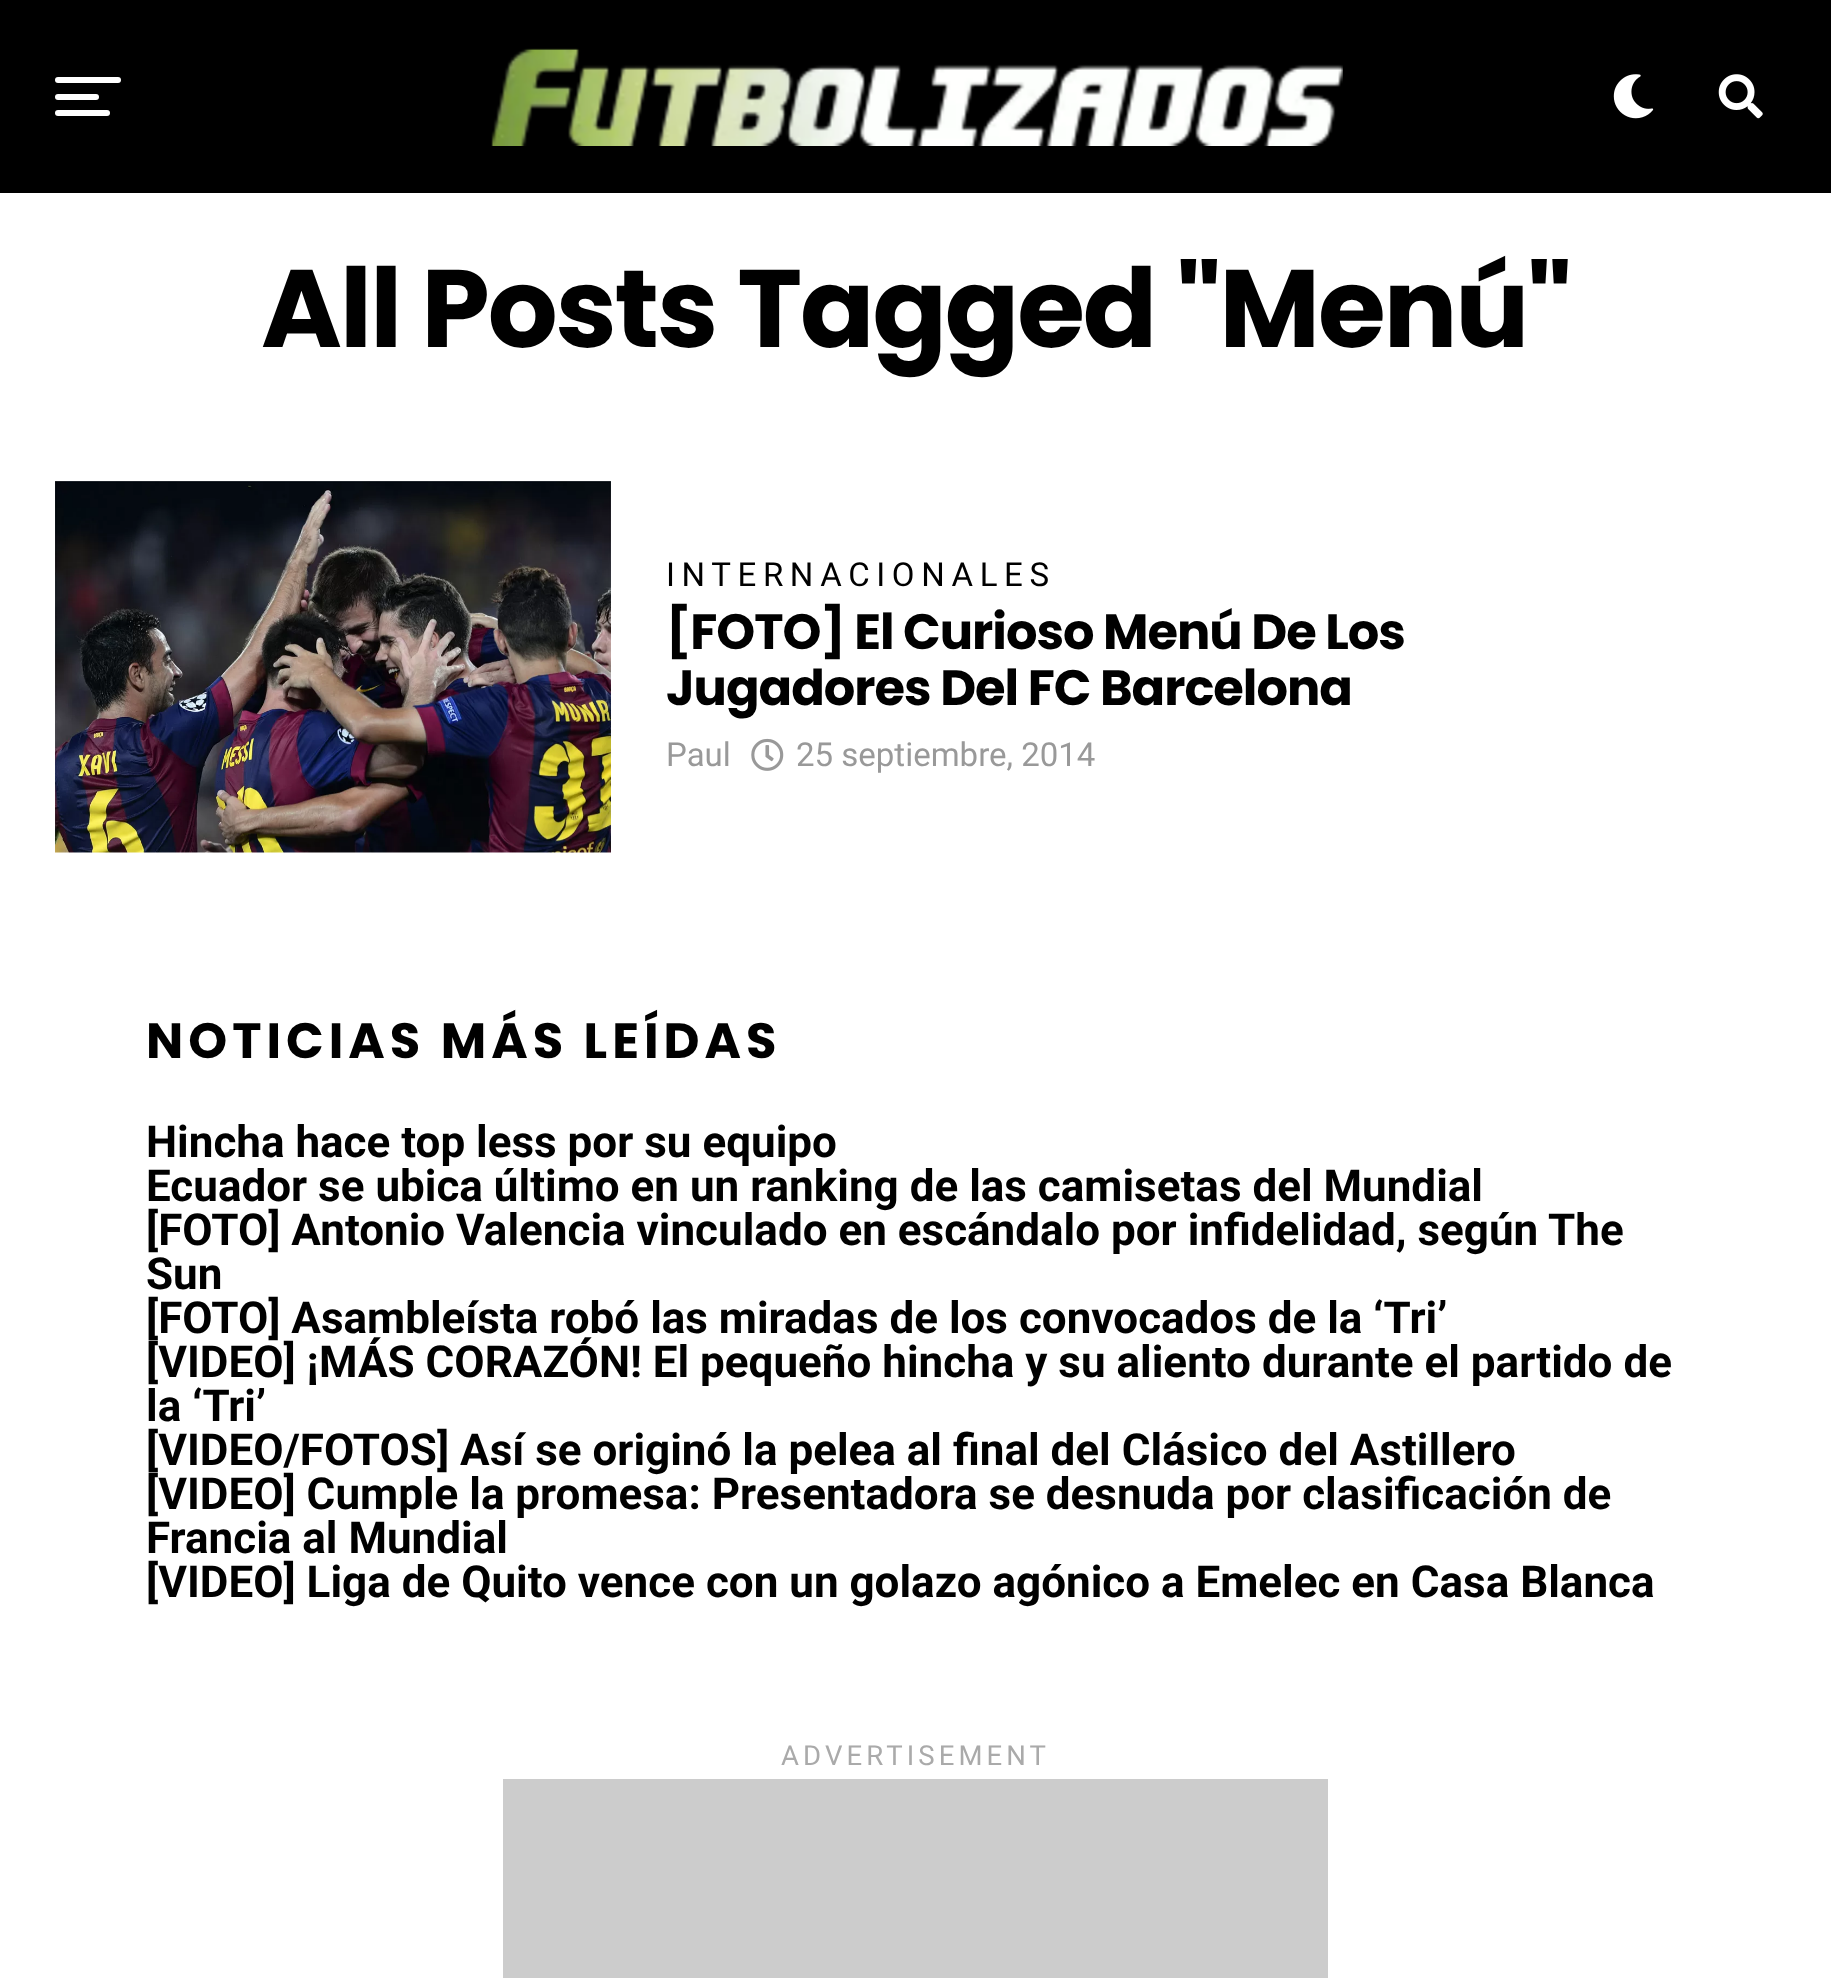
<svg xmlns="http://www.w3.org/2000/svg" width="1831" height="1978">
<rect width="100%" height="100%" fill="#fff"/>
<rect width="1831" height="193" fill="#000"/>
<rect x="55" y="77" width="66" height="6" rx="3" fill="#fff"/>
<rect x="55" y="94" width="44" height="6" rx="3" fill="#fff"/>
<rect x="55" y="110" width="55" height="6" rx="3" fill="#fff"/>
<image x="491" y="48" width="852" height="98" href="media/1.png"/>
<image x="1613" y="74" width="41" height="45" href="media/2.png"/>
<image x="1718" y="74" width="45" height="45" href="media/3.png"/>
<text x="261" y="347" style="font-family:Poppins;font-size:109.9px;font-weight:bold;letter-spacing:-2.2px;fill:#000">All Posts Tagged "Menú"</text>
<image x="55" y="481" width="556" height="372" href="media/4.png"/>
<text x="666" y="586" style="font-family:Roboto;font-size:33px;letter-spacing:6.6px;fill:#000">INTERNACIONALES</text>
<text x="666" y="649" style="font-family:Poppins;font-size:49.5px;font-weight:bold;letter-spacing:-1px;fill:#000">[FOTO] El Curioso Menú De Los</text>
<text x="666" y="705" style="font-family:Poppins;font-size:49.5px;font-weight:bold;letter-spacing:-1px;fill:#000">Jugadores Del FC Barcelona</text>
<text x="666" y="766" style="font-family:Roboto;font-size:33px;fill:#999">Paul</text>
<image x="751" y="738" width="33" height="33" href="media/5.png"/>
<text x="796" y="766" style="font-family:Roboto;font-size:33px;fill:#999">25 septiembre, 2014</text>
<text x="146" y="1058" style="font-family:Poppins;font-size:49.5px;font-weight:bold;letter-spacing:5px;fill:#000">NOTICIAS MÁS LEÍDAS</text>
<text x="146" y="1157" style="font-family:Roboto;font-size:44px;font-weight:bold;fill:#000">Hincha hace top less por su equipo</text>
<text x="146" y="1201" style="font-family:Roboto;font-size:44px;font-weight:bold;fill:#000">Ecuador se ubica último en un ranking de las camisetas del Mundial</text>
<text x="146" y="1245" style="font-family:Roboto;font-size:44px;font-weight:bold;fill:#000">[FOTO] Antonio Valencia vinculado en escándalo por infidelidad, según The</text>
<text x="146" y="1289" style="font-family:Roboto;font-size:44px;font-weight:bold;fill:#000">Sun</text>
<text x="146" y="1333" style="font-family:Roboto;font-size:44px;font-weight:bold;fill:#000">[FOTO] Asambleísta robó las miradas de los convocados de la ‘Tri’</text>
<text x="146" y="1377" style="font-family:Roboto;font-size:44px;font-weight:bold;fill:#000">[VIDEO] ¡MÁS CORAZÓN! El pequeño hincha y su aliento durante el partido de</text>
<text x="146" y="1421" style="font-family:Roboto;font-size:44px;font-weight:bold;fill:#000">la ‘Tri’</text>
<text x="146" y="1465" style="font-family:Roboto;font-size:44px;font-weight:bold;fill:#000">[VIDEO/FOTOS] Así se originó la pelea al final del Clásico del Astillero</text>
<text x="146" y="1509" style="font-family:Roboto;font-size:44px;font-weight:bold;fill:#000">[VIDEO] Cumple la promesa: Presentadora se desnuda por clasificación de</text>
<text x="146" y="1553" style="font-family:Roboto;font-size:44px;font-weight:bold;fill:#000">Francia al Mundial</text>
<text x="146" y="1597" style="font-family:Roboto;font-size:44px;font-weight:bold;fill:#000">[VIDEO] Liga de Quito vence con un golazo agónico a Emelec en Casa Blanca</text>
<text x="781" y="1765" style="font-family:Roboto;font-size:27.5px;letter-spacing:4.1px;fill:#aaa">ADVERTISEMENT</text>
<rect x="503" y="1779" width="825" height="199" fill="#ccc"/>
</svg>
